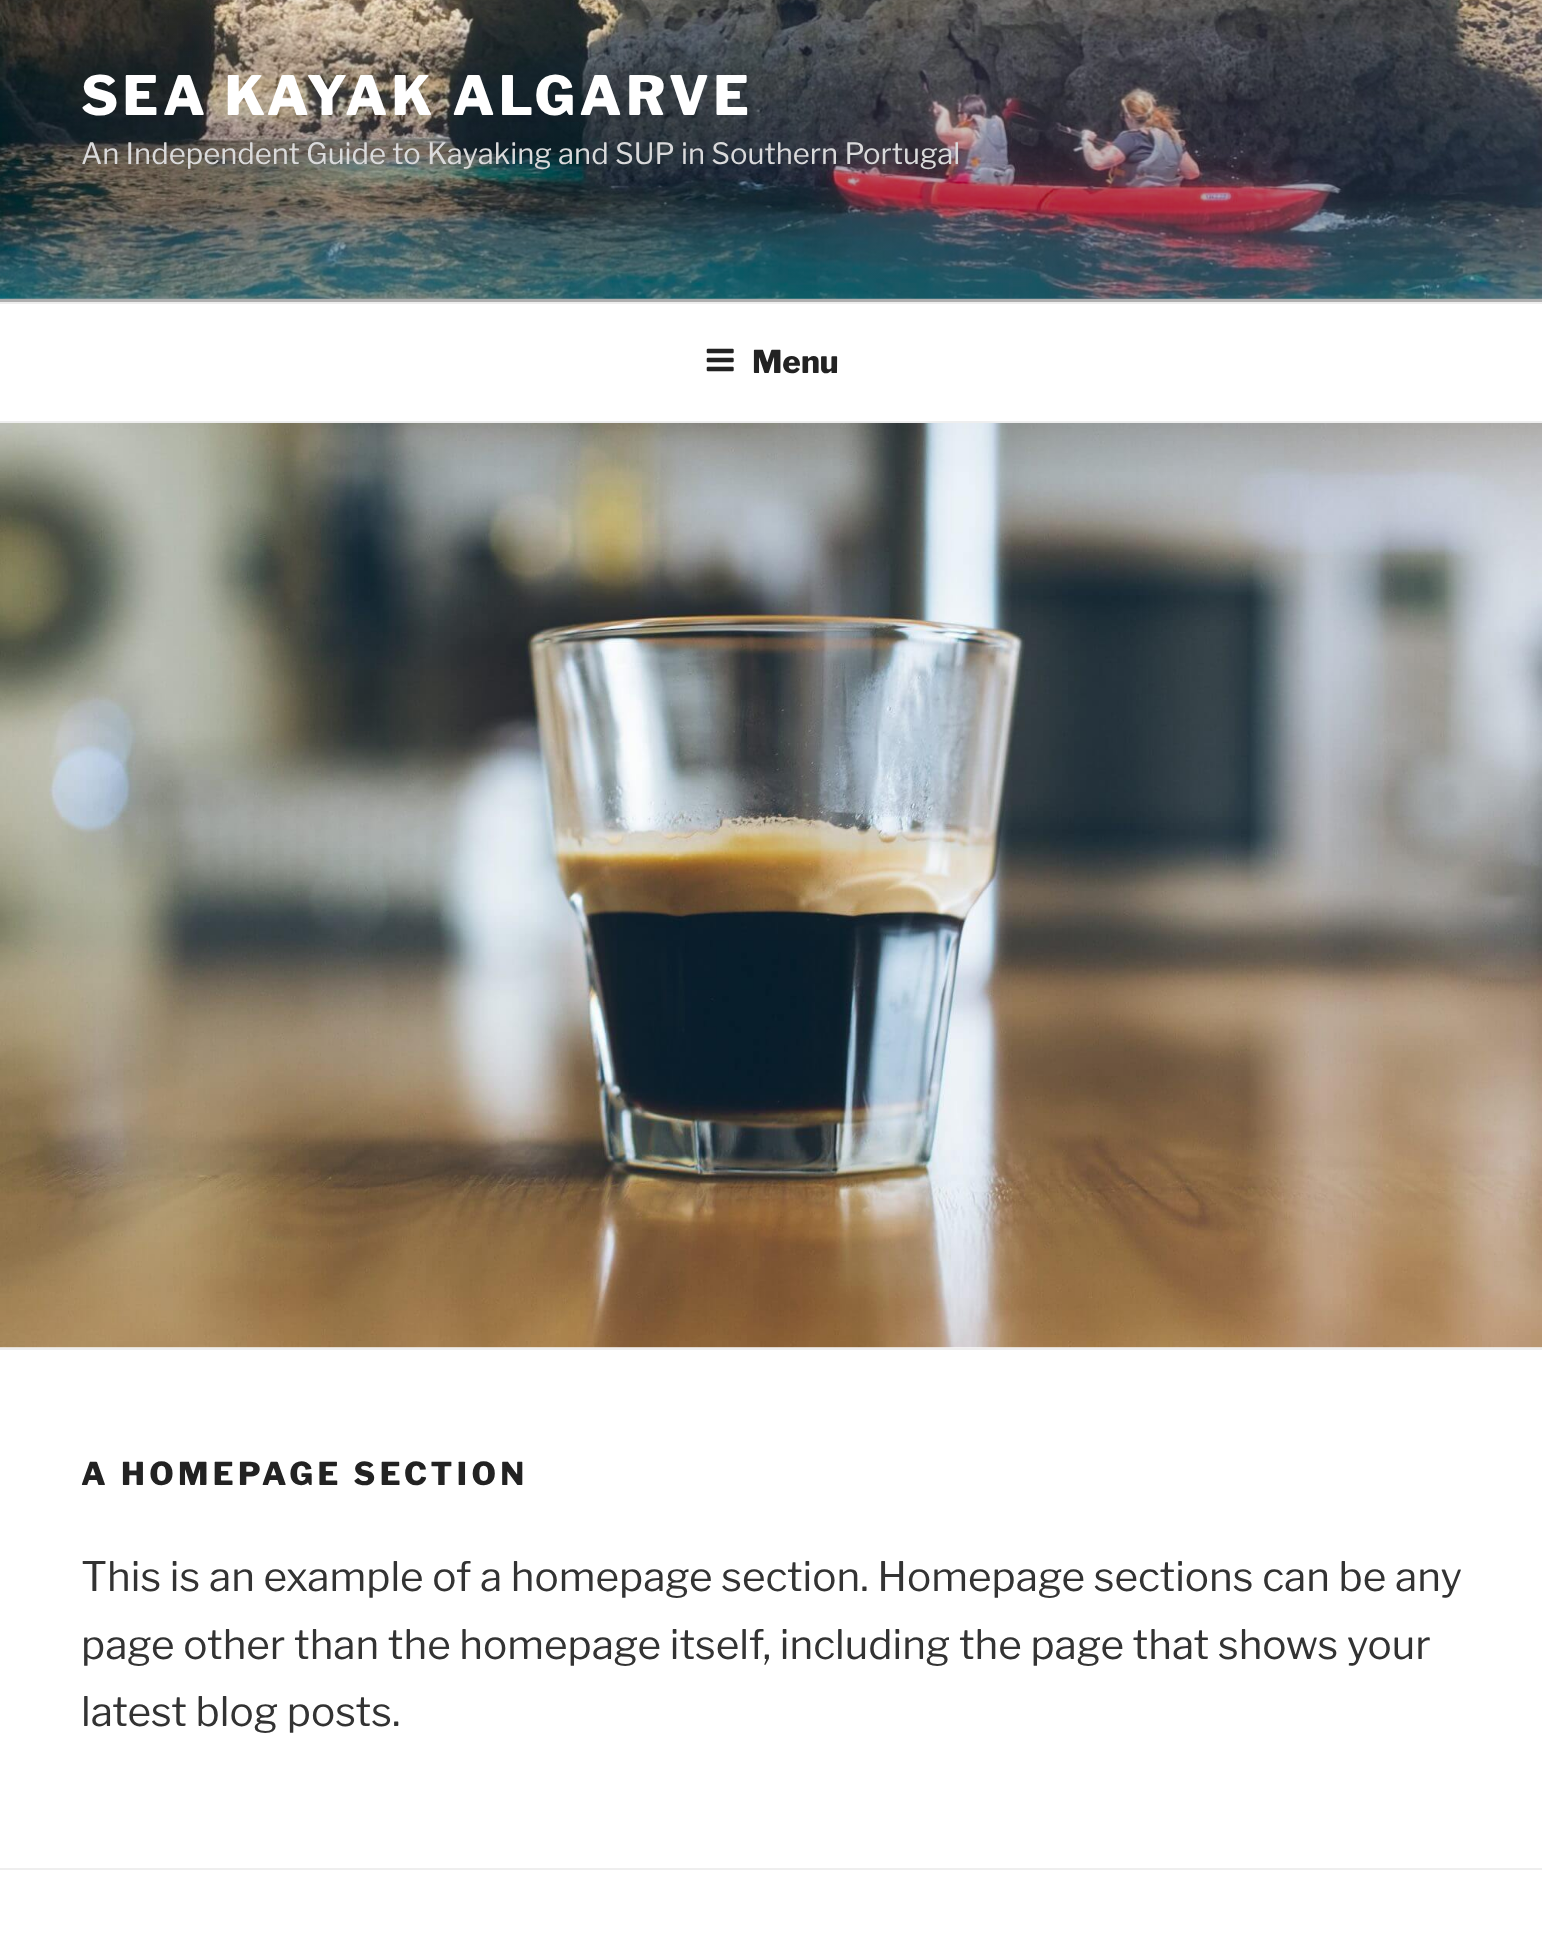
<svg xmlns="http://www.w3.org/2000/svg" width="1542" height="1952">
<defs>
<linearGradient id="g1" gradientUnits="userSpaceOnUse" x1="772" y1="-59" x2="772" y2="302"><stop offset="0" stop-color="#000" stop-opacity="0"/><stop offset="0.75" stop-color="#000" stop-opacity="0.3"/><stop offset="1" stop-color="#000" stop-opacity="0.3"/></linearGradient>
</defs>
<rect width="100%" height="100%" fill="#fff"/>
<rect y="298" width="1542" height="4" fill="#fafafa"/>
<image x="0" y="0" width="1542" height="299" href="media/1.png"/>
<rect width="1542" height="302" fill="url(#g1)"/>
<text x="81" y="115" style="font-family:Libre Franklin;font-size:54px;font-weight:100;letter-spacing:4.3px;fill:#fff">SEA KAYAK ALGARVE</text>
<text x="81" y="164" style="font-family:'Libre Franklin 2';font-size:29.25px;font-weight:100;fill:#dadadb">An Independent Guide to Kayaking and SUP in Southern Portugal</text>
<rect y="302" width="1542" height="2" fill="#eee"/>
<rect y="421" width="1542" height="2" fill="#eee"/>
<image x="706" y="348" width="28" height="24" href="media/2.png"/>
<text x="752" y="373" style="font-family:Libre Franklin;font-size:31.5px;font-weight:100;fill:#222">Menu</text>
<rect y="1347" width="1542" height="1" fill="#fafafa"/>
<rect y="1348" width="1542" height="2" fill="#eee"/>
<image x="0" y="423" width="1542" height="925" href="media/3.png"/>
<text x="81" y="1485" style="font-family:Libre Franklin;font-size:31.5px;font-weight:100;letter-spacing:4.4px;fill:#222">A HOMEPAGE SECTION</text>
<text x="81" y="1591" style="font-family:'Libre Franklin 2';font-size:40.5px;font-weight:100;fill:#333">This is an example of a homepage section. Homepage sections can be any</text>
<text x="81" y="1659" style="font-family:'Libre Franklin 2';font-size:40.5px;font-weight:100;fill:#333">page other than the homepage itself, including the page that shows your</text>
<text x="81" y="1726" style="font-family:'Libre Franklin 2';font-size:40.5px;font-weight:100;fill:#333">latest blog posts.</text>
<rect y="1868" width="1542" height="2" fill="#eee"/>
</svg>
